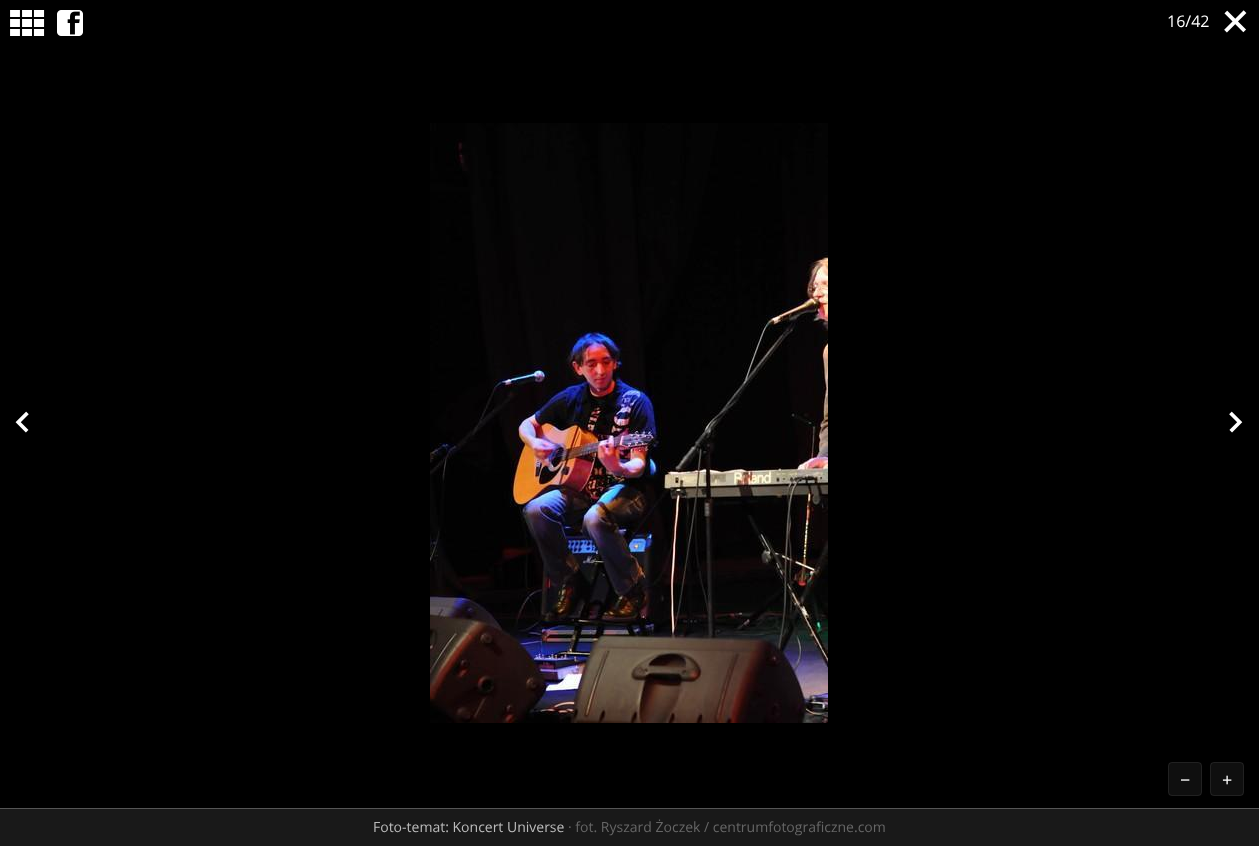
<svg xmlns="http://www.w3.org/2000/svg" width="1259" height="846">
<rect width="100%" height="100%" fill="#000"/>
<text x="1167" y="27" style="font-family:Open Sans;font-size:16px;fill:#fff">16/42</text>
<image x="1224" y="10" width="23" height="23" href="media/1.png"/>
<image x="15" y="411" width="14" height="22" href="media/2.png"/>
<image x="430" y="123" width="398" height="600" href="media/3.png"/>
<image x="1229" y="411" width="14" height="22" href="media/4.png"/>
<image x="10" y="10" width="35" height="26" href="media/5.png"/>
<image x="57" y="10" width="26" height="26" href="media/6.png"/>
<rect x="1168" y="762" width="34" height="34" rx="4" fill="#0f0f0f"/>
<rect x="1168.5" y="762.5" width="33" height="33" rx="3.5" fill="none" stroke="#ffffff14"/>
<text x="1180" y="786" style="font-family:Liberation Serif;font-size:18px;font-weight:bold;fill:#fff">−</text>
<rect x="1210" y="762" width="34" height="34" rx="4" fill="#0f0f0f"/>
<rect x="1210.5" y="762.5" width="33" height="33" rx="3.5" fill="none" stroke="#ffffff14"/>
<text x="1222" y="786" style="font-family:Liberation Serif;font-size:18px;font-weight:bold;fill:#fff">+</text>
<rect y="809" width="1259" height="37" fill="#191919"/>
<rect y="808" width="1259" height="1" fill="#555"/>
<text x="373" y="832" style="font-family:Open Sans;font-size:14px;fill:#bcbcbc">Foto-temat: Koncert Universe</text>
<text x="568" y="832" style="font-family:Open Sans;font-size:14px;fill:#666">· fot. Ryszard Żoczek / centrumfotograficzne.com</text>
</svg>
